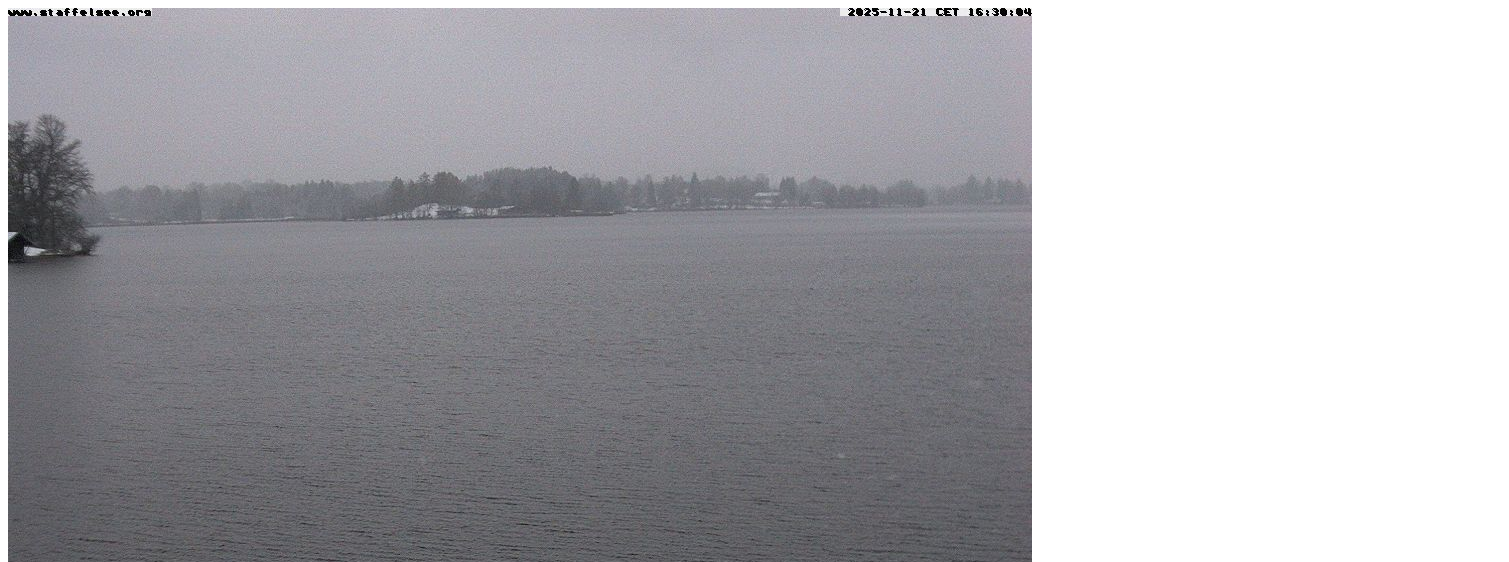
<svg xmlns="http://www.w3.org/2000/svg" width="1509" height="562">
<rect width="100%" height="100%" fill="#fff"/>
<image x="8" y="8" width="1024" height="554" href="media/1.png"/>
</svg>
